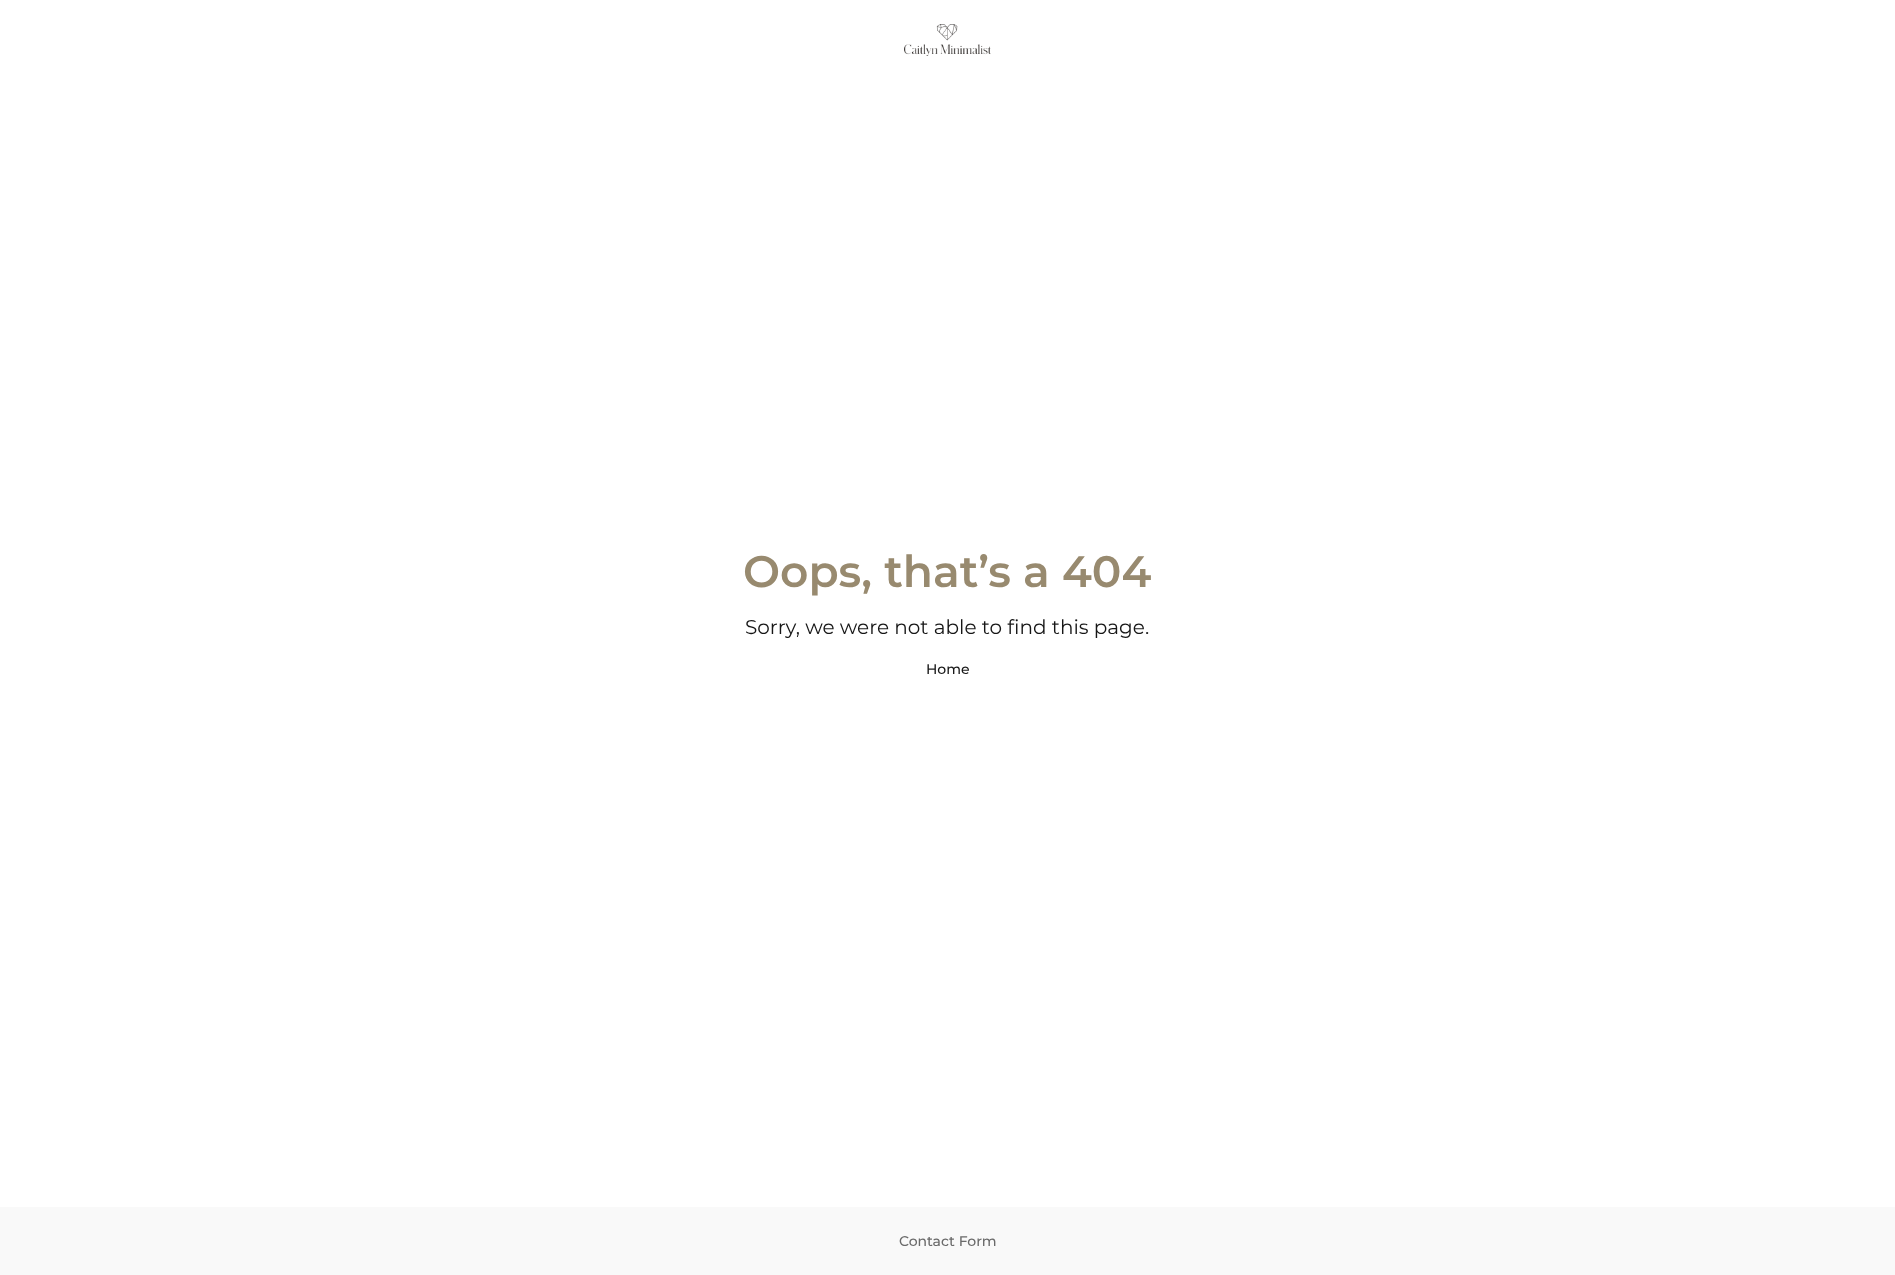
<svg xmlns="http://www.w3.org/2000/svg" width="1895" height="1275">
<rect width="100%" height="100%" fill="#fff"/>
<image x="904" y="24" width="87" height="32" href="media/1.png"/>
<text x="743" y="587" style="font-family:Montserrat;font-size:44px;font-weight:600;fill:#988a6f">Oops, that’s a 404</text>
<text x="745" y="634" style="font-family:Montserrat;font-size:20px;fill:#161616">Sorry, we were not able to find this page.</text>
<text x="926" y="674" style="font-family:Montserrat;font-size:14px;font-weight:500;fill:#161616">Home</text>
<rect y="1207" width="1895" height="68" fill="#f9f9f9"/>
<text x="899" y="1246" style="font-family:Montserrat;font-size:14px;font-weight:500;fill:#6a6a6a">Contact Form</text>
</svg>
